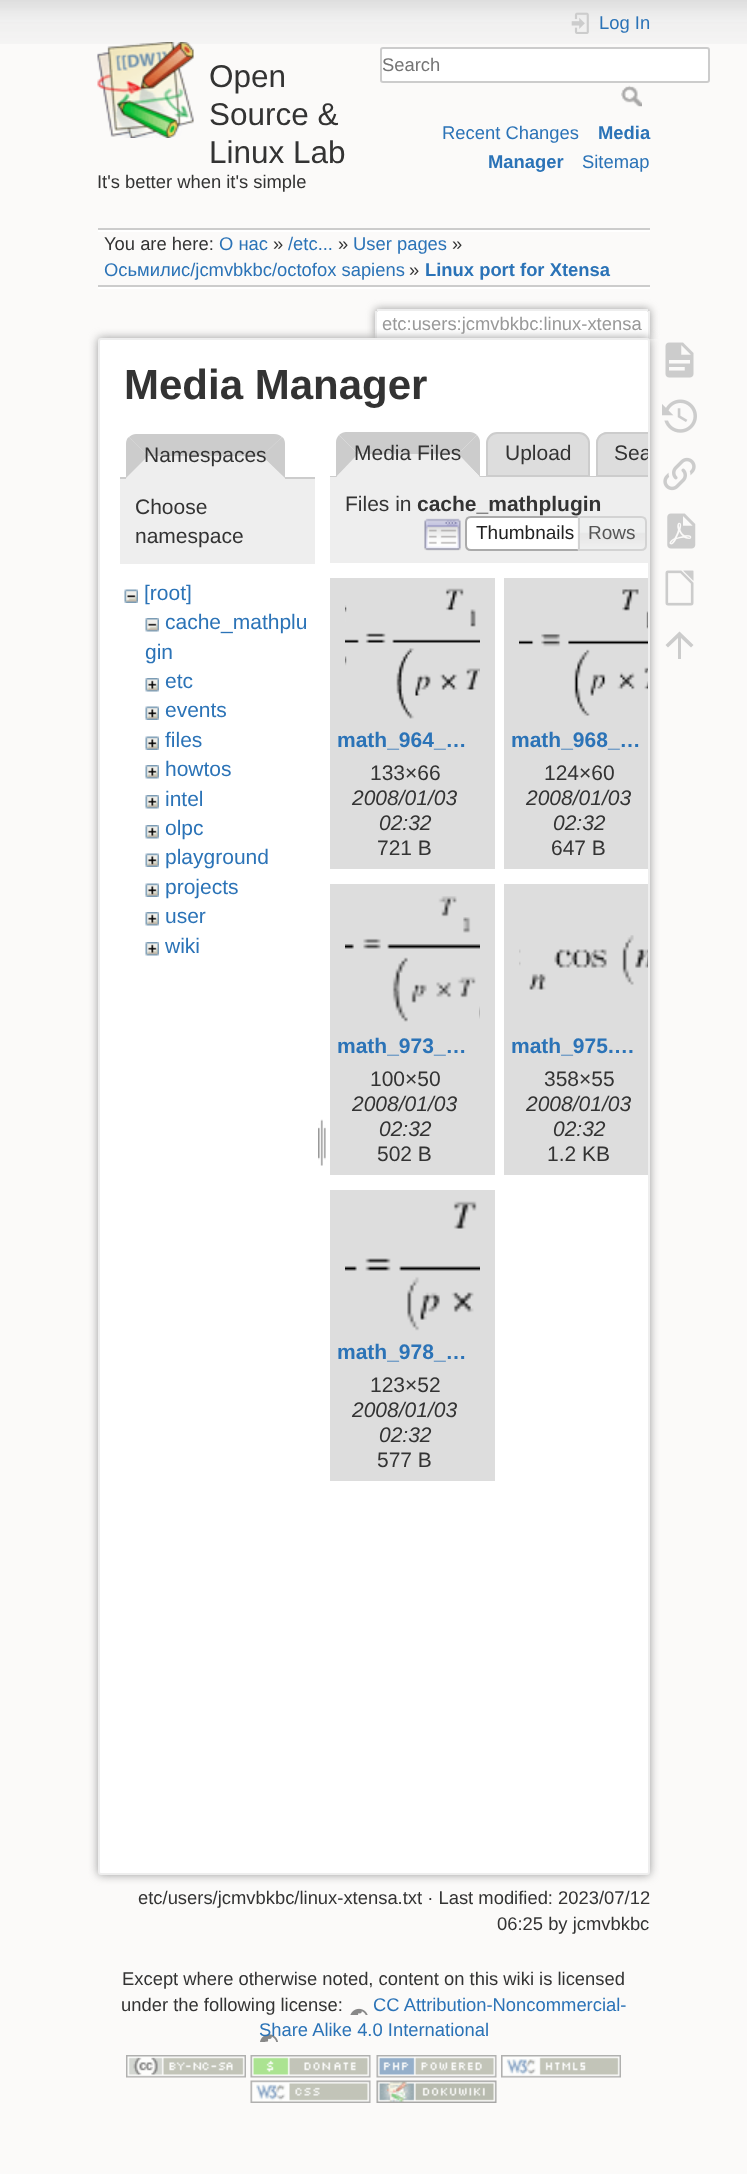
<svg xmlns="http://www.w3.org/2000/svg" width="747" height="2174">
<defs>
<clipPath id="clip1"><rect x="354" y="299" width="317" height="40"/></clipPath>
<clipPath id="clip2"><rect x="99" y="339" width="549" height="1535" rx="1.5"/></clipPath>
</defs>
<rect width="100%" height="100%" fill="#fbfaf9"/>
<image x="0" y="0" width="747" height="44" href="media/1.png"/>
<image x="97" y="42" width="97" height="96" href="media/2.png"/>
<text x="209" y="87" style="font-family:Liberation Sans;font-size:31.5px;fill:#333">Open</text>
<text x="209" y="125" style="font-family:Liberation Sans;font-size:31.5px;fill:#333">Source &amp;</text>
<text x="209" y="163" style="font-family:Liberation Sans;font-size:31.5px;fill:#333">Linux Lab</text>
<text x="97" y="188" style="font-family:Liberation Sans;font-size:18.4px;fill:#333">It's better when it's simple</text>
<image x="571" y="12" width="18" height="22" href="media/3.png"/>
<text x="599" y="29" style="font-family:Liberation Sans;font-size:18.4px;fill:#2b73b7">Log In</text>
<rect x="381" y="48" width="328" height="34" rx="2" fill="#fff" stroke="#ccc" stroke-width="2"/>
<text x="382" y="71" style="font-family:Liberation Sans;font-size:18.4px;fill:#757575">Search</text>
<image x="621" y="85" width="21" height="22" href="media/4.png"/>
<text x="442" y="139" style="font-family:Liberation Sans;font-size:18.4px;fill:#2b73b7">Recent Changes</text>
<text x="598" y="139" style="font-family:Liberation Sans;font-size:18.4px;font-weight:bold;fill:#2b73b7">Media</text>
<text x="488" y="168" style="font-family:Liberation Sans;font-size:18.4px;font-weight:bold;fill:#2b73b7">Manager</text>
<text x="582" y="168" style="font-family:Liberation Sans;font-size:18.4px;fill:#2b73b7">Sitemap</text>
<rect x="98" y="228" width="552" height="2" fill="#ccc"/>
<rect x="98" y="287" width="552" height="2" fill="#fff"/>
<rect x="98" y="230" width="552" height="2" fill="#fff"/>
<rect x="98" y="285" width="552" height="2" fill="#ccc"/>
<text x="104" y="250" style="font-family:Liberation Sans;font-size:18.4px;fill:#333">You are here:</text>
<text x="219" y="250" style="font-family:Liberation Sans;font-size:18.4px;fill:#2b73b7">О нас</text>
<text x="273" y="250" style="font-family:Liberation Sans;font-size:18.4px;fill:#333">»</text>
<text x="288" y="250" style="font-family:Liberation Sans;font-size:18.4px;fill:#2b73b7">/etc...</text>
<text x="338" y="250" style="font-family:Liberation Sans;font-size:18.4px;fill:#333">»</text>
<text x="353" y="250" style="font-family:Liberation Sans;font-size:18.4px;fill:#2b73b7">User pages</text>
<text x="452" y="250" style="font-family:Liberation Sans;font-size:18.4px;fill:#333">»</text>
<text x="104" y="276" style="font-family:Liberation Sans;font-size:18.4px;fill:#2b73b7">Осьмилис/jcmvbkbc/octofox sapiens</text>
<text x="409" y="276" style="font-family:Liberation Sans;font-size:18.4px;fill:#333">»</text>
<text x="425" y="276" style="font-family:Liberation Sans;font-size:18.4px;font-weight:bold;fill:#2b73b7">Linux port for Xtensa</text>
<g clip-path="url(#clip1)">
<rect x="375" y="309" width="275" height="30" rx="3" fill="#999" filter="blur(4.5px)"/>
</g>
<path d="M378.5 311h268c1 0 1.5 .5 1.5 1.5v26.5h-271v-26.5c0-1 .5-1.5 1.5-1.5z" fill="#fff"/>
<rect x="377" y="309" width="271" height="2" fill="#eee"/>
<rect x="648" y="311" width="2" height="28" fill="#eee"/>
<rect x="375" y="311" width="2" height="28" fill="#eee"/>
<text x="382" y="330" style="font-family:Liberation Sans;font-size:18.4px;fill:#999">etc:users:jcmvbkbc:linux-xtensa</text>
<rect x="98" y="338" width="552" height="1537" rx="3" fill="#999" filter="blur(5px)"/>
<rect x="99" y="339" width="550" height="1535" rx="2" fill="#fff" stroke="#eee" stroke-width="2"/>
<text x="124" y="399" style="font-family:Liberation Sans;font-size:42px;font-weight:bold;fill:#333">Media Manager</text>
<rect x="120" y="477" width="195" height="2" fill="#ccc"/>
<path d="M137 434h137c6 0 11 5 11 11v34h-159v-34c0-6 5-11 11-11z" fill="#eee"/>
<path d="M136 434c-2 0-5 1-7 3l19 19h114l20-19c-2-2-5-3-8-3z" fill="#ccc"/>
<path d="M285 478l-23-22l20-19c2 1 3 4 3 7z" fill="#ccc"/>
<path d="M284 478l-22-22h-114l-22 22z" fill="#eee"/>
<path d="M126 444c0-3 1-6 3-7l19 19l-22 22z" fill="#ccc"/>
<text x="144" y="462" style="font-family:Liberation Sans;font-size:21px;fill:#333">Namespaces</text>
<rect x="120" y="479" width="195" height="85" fill="#eee"/>
<text x="135" y="514" style="font-family:Liberation Sans;font-size:21px;fill:#333">Choose</text>
<text x="135" y="543" style="font-family:Liberation Sans;font-size:21px;fill:#333">namespace</text>
<image x="124" y="589" width="14" height="14" href="media/5.png"/>
<text x="144" y="600" style="font-family:Liberation Sans;font-size:21px;fill:#2b73b7">[root]</text>
<image x="145" y="618" width="14" height="14" href="media/6.png"/>
<text x="165" y="629" style="font-family:Liberation Sans;font-size:21px;fill:#2b73b7">cache_mathplu</text>
<text x="145" y="659" style="font-family:Liberation Sans;font-size:21px;fill:#2b73b7">gin</text>
<image x="145" y="678" width="14" height="14" href="media/7.png"/>
<text x="165" y="688" style="font-family:Liberation Sans;font-size:21px;fill:#2b73b7">etc</text>
<image x="145" y="706" width="14" height="14" href="media/8.png"/>
<text x="165" y="717" style="font-family:Liberation Sans;font-size:21px;fill:#2b73b7">events</text>
<image x="145" y="736" width="14" height="14" href="media/8.png"/>
<text x="165" y="747" style="font-family:Liberation Sans;font-size:21px;fill:#2b73b7">files</text>
<image x="145" y="765" width="14" height="14" href="media/7.png"/>
<text x="165" y="776" style="font-family:Liberation Sans;font-size:21px;fill:#2b73b7">howtos</text>
<image x="145" y="795" width="14" height="14" href="media/7.png"/>
<text x="165" y="806" style="font-family:Liberation Sans;font-size:21px;fill:#2b73b7">intel</text>
<image x="145" y="825" width="14" height="14" href="media/7.png"/>
<text x="165" y="835" style="font-family:Liberation Sans;font-size:21px;fill:#2b73b7">olpc</text>
<image x="145" y="853" width="14" height="14" href="media/8.png"/>
<text x="165" y="864" style="font-family:Liberation Sans;font-size:21px;fill:#2b73b7">playground</text>
<image x="145" y="883" width="14" height="14" href="media/8.png"/>
<text x="165" y="894" style="font-family:Liberation Sans;font-size:21px;fill:#2b73b7">projects</text>
<image x="145" y="912" width="14" height="14" href="media/7.png"/>
<text x="165" y="923" style="font-family:Liberation Sans;font-size:21px;fill:#2b73b7">user</text>
<image x="145" y="942" width="14" height="14" href="media/7.png"/>
<text x="165" y="953" style="font-family:Liberation Sans;font-size:21px;fill:#2b73b7">wiki</text>
<image x="318" y="1119" width="8" height="47" href="media/9.png"/>
<path d="M346 432h124c2 0 5 1 7 3l-19 19h-100l-19-19c2-2 5-3 7-3z" fill="#ccc"/>
<path d="M497 433h82c5.5 0 10 4.5 10 10v33h-102v-33c0-5.5 4.5-10 10-10z" fill="#ddd" stroke="#ccc" stroke-width="2"/>
<rect x="330" y="476" width="266" height="1" fill="#ccc"/>
<path d="M477 435l-19 19l22 23v-35c0-2-1-5-3-7z" fill="#ccc"/>
<path d="M480 477l-22-23h-100l-22 23z" fill="#eee"/>
<path d="M336 477v-35c0-2 1-5 3-7l19 19z" fill="#ccc"/>
<text x="354" y="460" style="font-family:Liberation Sans;font-size:21px;fill:#333">Media Files</text>
<text x="505" y="460" style="font-family:Liberation Sans;font-size:21px;fill:#333">Upload</text>
<path d="M607 432h41v45h-52v-34c0-6 5-11 11-11z" fill="#ddd"/>
<path d="M607 432c-6 0-11 5-11 11v34h52v-2h-50v-32c0-5 4-9 9-9h41v-2z" fill="#ccc"/>
<g clip-path="url(#clip2)">
<text x="614" y="460" style="font-family:Liberation Sans;font-size:21px;fill:#333">Sea</text>
</g>
<rect x="330" y="477" width="318" height="86" fill="#eee"/>
<text x="345" y="511" style="font-family:Liberation Sans;font-size:21px;fill:#333">Files in</text>
<text x="417" y="511" style="font-family:Liberation Sans;font-size:21px;font-weight:bold;fill:#333">cache_mathplugin</text>
<image x="424" y="518" width="37" height="33" href="media/10.png"/>
<path d="M471 517h113v33h-113c-3 0-5-2-5-5v-23c0-3 2-5 5-5z" fill="#fff" stroke="#aaa" stroke-width="2"/>
<text x="476" y="539" style="font-family:Liberation Sans;font-size:19px;fill:#212121">Thumbnails</text>
<image x="577" y="516" width="69" height="35" href="media/11.png"/>
<path d="M579 517h62c3 0 5 2 5 5v23c0 3-2 5-5 5h-62z" fill="none" stroke="#d3d3d3" stroke-width="2"/>
<text x="588" y="539" style="font-family:Liberation Sans;font-size:19px;fill:#555">Rows</text>
<rect x="330" y="578" width="165" height="291" fill="#ddd"/>
<image x="345" y="588" width="135" height="131" href="media/12.png"/>
<text x="337" y="747" style="font-family:Liberation Sans;font-size:21px;font-weight:bold;fill:#2b73b7">math_964_…</text>
<text x="370" y="780" style="font-family:Liberation Sans;font-size:21px;fill:#333">133×66</text>
<text x="352" y="805" style="font-family:Liberation Sans;font-size:21px;font-style:italic;fill:#333">2008/01/03</text>
<text x="379" y="830" style="font-family:Liberation Sans;font-size:21px;font-style:italic;fill:#333">02:32</text>
<text x="377" y="855" style="font-family:Liberation Sans;font-size:21px;fill:#333">721 B</text>
<rect x="504" y="578" width="144" height="291" fill="#ddd"/>
<image x="519" y="589" width="129" height="127" href="media/13.png"/>
<text x="511" y="747" style="font-family:Liberation Sans;font-size:21px;font-weight:bold;fill:#2b73b7">math_968_…</text>
<text x="544" y="780" style="font-family:Liberation Sans;font-size:21px;fill:#333">124×60</text>
<text x="526" y="805" style="font-family:Liberation Sans;font-size:21px;font-style:italic;fill:#333">2008/01/03</text>
<text x="553" y="830" style="font-family:Liberation Sans;font-size:21px;font-style:italic;fill:#333">02:32</text>
<text x="551" y="855" style="font-family:Liberation Sans;font-size:21px;fill:#333">647 B</text>
<rect x="330" y="884" width="165" height="291" fill="#ddd"/>
<image x="345" y="896" width="135" height="126" href="media/14.png"/>
<text x="337" y="1053" style="font-family:Liberation Sans;font-size:21px;font-weight:bold;fill:#2b73b7">math_973_…</text>
<text x="370" y="1086" style="font-family:Liberation Sans;font-size:21px;fill:#333">100×50</text>
<text x="352" y="1111" style="font-family:Liberation Sans;font-size:21px;font-style:italic;fill:#333">2008/01/03</text>
<text x="379" y="1136" style="font-family:Liberation Sans;font-size:21px;font-style:italic;fill:#333">02:32</text>
<text x="377" y="1161" style="font-family:Liberation Sans;font-size:21px;fill:#333">502 B</text>
<rect x="504" y="884" width="144" height="291" fill="#ddd"/>
<image x="519" y="935" width="129" height="55" href="media/15.png"/>
<text x="511" y="1053" style="font-family:Liberation Sans;font-size:21px;font-weight:bold;fill:#2b73b7">math_975.…</text>
<text x="544" y="1086" style="font-family:Liberation Sans;font-size:21px;fill:#333">358×55</text>
<text x="526" y="1111" style="font-family:Liberation Sans;font-size:21px;font-style:italic;fill:#333">2008/01/03</text>
<text x="553" y="1136" style="font-family:Liberation Sans;font-size:21px;font-style:italic;fill:#333">02:32</text>
<text x="547" y="1161" style="font-family:Liberation Sans;font-size:21px;fill:#333">1.2 KB</text>
<rect x="330" y="1190" width="165" height="291" fill="#ddd"/>
<image x="345" y="1201" width="135" height="130" href="media/16.png"/>
<text x="337" y="1359" style="font-family:Liberation Sans;font-size:21px;font-weight:bold;fill:#2b73b7">math_978_…</text>
<text x="370" y="1392" style="font-family:Liberation Sans;font-size:21px;fill:#333">123×52</text>
<text x="352" y="1417" style="font-family:Liberation Sans;font-size:21px;font-style:italic;fill:#333">2008/01/03</text>
<text x="379" y="1442" style="font-family:Liberation Sans;font-size:21px;font-style:italic;fill:#333">02:32</text>
<text x="377" y="1467" style="font-family:Liberation Sans;font-size:21px;fill:#333">577 B</text>
<text x="138" y="1904" style="font-family:Liberation Sans;font-size:18.4px;fill:#333">etc/users/jcmvbkbc/linux-xtensa.txt · Last modified: 2023/07/12</text>
<text x="497" y="1930" style="font-family:Liberation Sans;font-size:18.4px;fill:#333">06:25 by jcmvbkbc</text>
<image x="665" y="342" width="29" height="36" href="media/17.png"/>
<image x="662" y="399" width="35" height="34" href="media/18.png"/>
<image x="663" y="457" width="33" height="34" href="media/19.png"/>
<image x="667" y="513" width="29" height="36" href="media/20.png"/>
<image x="665" y="570" width="29" height="36" href="media/21.png"/>
<path d="M681 659h-3v-21l-10 9.5l-2.5-2.5l14-13.5l14 13.5l-2.5 2.5l-10-9.5z" fill="#ccc"/>
<text x="122" y="1985" style="font-family:Liberation Sans;font-size:18.4px;fill:#333">Except where otherwise noted, content on this wiki is licensed</text>
<text x="121" y="2011" style="font-family:Liberation Sans;font-size:18.4px;fill:#333">under the following license:</text>
<text x="373" y="2011" style="font-family:Liberation Sans;font-size:18.4px;fill:#2b73b7">CC Attribution-Noncommercial-</text>
<image x="260" y="2008" width="108" height="34" href="media/22.png"/>
<text x="259" y="2036" style="font-family:Liberation Sans;font-size:18.4px;fill:#2b73b7">Share Alike 4.0 International</text>
<image x="126" y="2055" width="120" height="23" href="media/23.png"/>
<image x="250" y="2055" width="121" height="23" href="media/24.png"/>
<image x="376" y="2055" width="121" height="23" href="media/25.png"/>
<image x="501" y="2055" width="120" height="23" href="media/26.png"/>
<image x="250" y="2080" width="121" height="23" href="media/27.png"/>
<image x="376" y="2080" width="121" height="23" href="media/28.png"/>
</svg>
